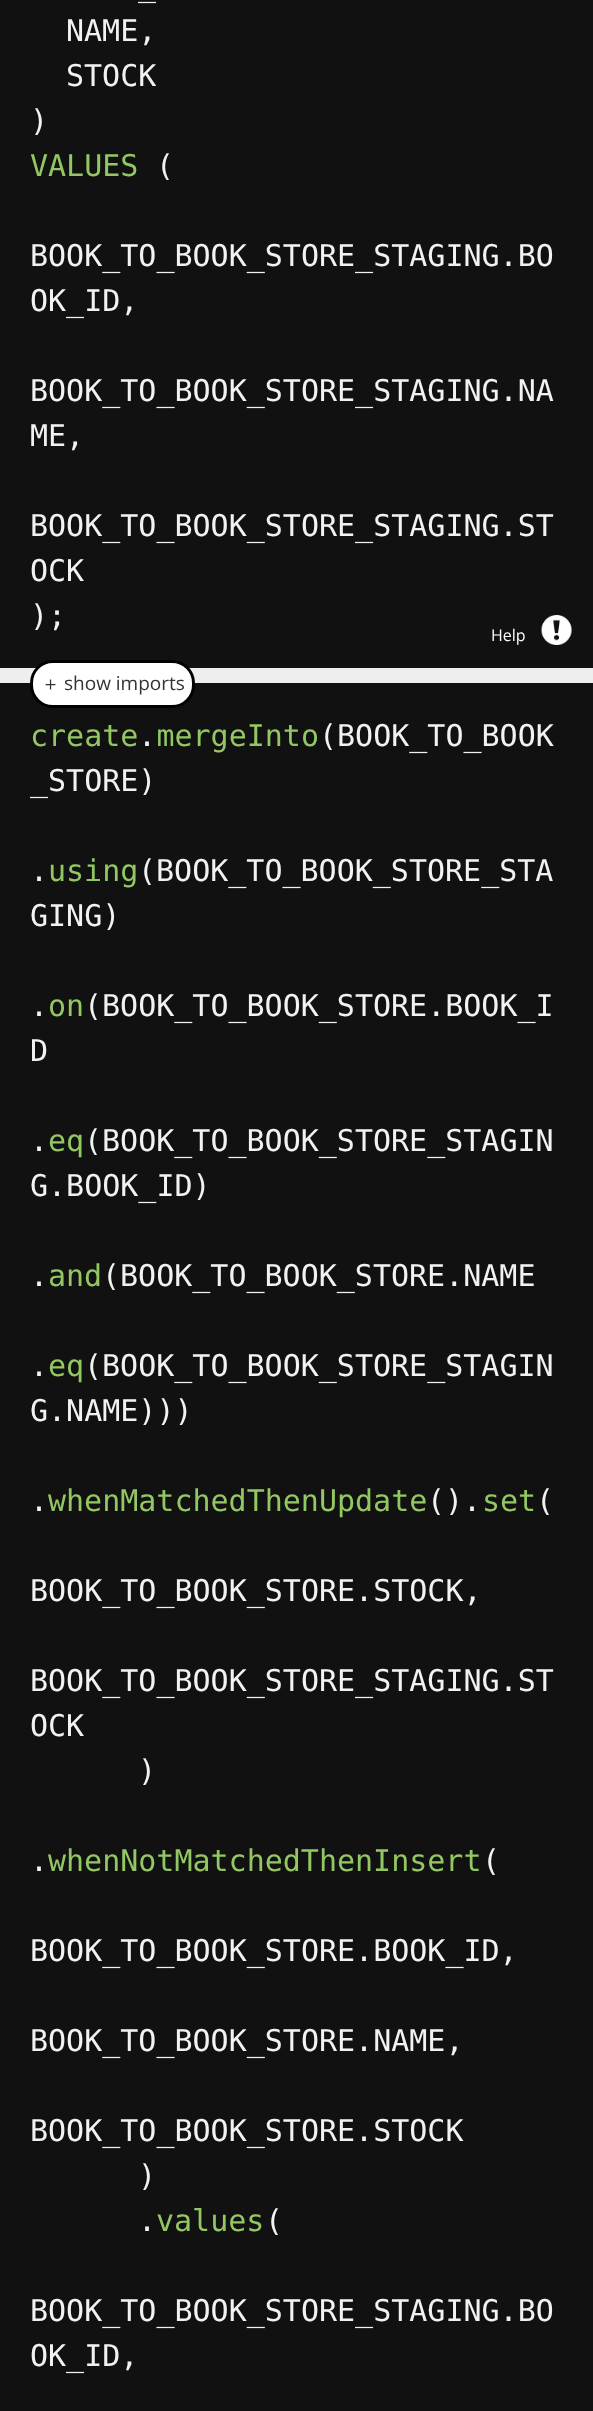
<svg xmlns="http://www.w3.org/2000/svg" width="593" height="2411">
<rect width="100%" height="100%" fill="#eee"/>
<rect width="593" height="668" fill="#111"/>
<text x="138" y="-4" style="font-family:DejaVu Sans Mono;font-size:30px;fill:#f1f2f3">_</text>
<text x="66" y="41" style="font-family:DejaVu Sans Mono;font-size:30px;fill:#f1f2f3">NAME,</text>
<text x="66" y="86" style="font-family:DejaVu Sans Mono;font-size:30px;fill:#f1f2f3">STOCK</text>
<text x="30" y="131" style="font-family:DejaVu Sans Mono;font-size:30px;fill:#f1f2f3">)</text>
<text x="30" y="176" style="font-family:DejaVu Sans Mono;font-size:30px;fill:#93c763">VALUES</text>
<text x="156" y="176" style="font-family:DejaVu Sans Mono;font-size:30px;fill:#f1f2f3">(</text>
<text x="30" y="266" style="font-family:DejaVu Sans Mono;font-size:30px;fill:#f1f2f3">BOOK_TO_BOOK_STORE_STAGING.BO</text>
<text x="30" y="311" style="font-family:DejaVu Sans Mono;font-size:30px;fill:#f1f2f3">OK_ID,</text>
<text x="30" y="401" style="font-family:DejaVu Sans Mono;font-size:30px;fill:#f1f2f3">BOOK_TO_BOOK_STORE_STAGING.NA</text>
<text x="30" y="446" style="font-family:DejaVu Sans Mono;font-size:30px;fill:#f1f2f3">ME,</text>
<text x="30" y="536" style="font-family:DejaVu Sans Mono;font-size:30px;fill:#f1f2f3">BOOK_TO_BOOK_STORE_STAGING.ST</text>
<text x="30" y="581" style="font-family:DejaVu Sans Mono;font-size:30px;fill:#f1f2f3">OCK</text>
<text x="30" y="626" style="font-family:DejaVu Sans Mono;font-size:30px;fill:#f1f2f3">);</text>
<rect y="683" width="593" height="1728" fill="#111"/>
<text x="30" y="746" style="font-family:DejaVu Sans Mono;font-size:30px;fill:#93c763">create mergeInto</text>
<text x="319" y="746" style="font-family:DejaVu Sans Mono;font-size:30px;fill:#f1f2f3">(BOOK_TO_BOOK</text>
<text x="138" y="746" style="font-family:DejaVu Sans Mono;font-size:30px;fill:#f1f2f3">.</text>
<text x="30" y="791" style="font-family:DejaVu Sans Mono;font-size:30px;fill:#f1f2f3">_STORE)</text>
<text x="30" y="881" style="font-family:DejaVu Sans Mono;font-size:30px;fill:#f1f2f3">.</text>
<text x="48" y="881" style="font-family:DejaVu Sans Mono;font-size:30px;fill:#93c763">using</text>
<text x="138" y="881" style="font-family:DejaVu Sans Mono;font-size:30px;fill:#f1f2f3">(BOOK_TO_BOOK_STORE_STA</text>
<text x="30" y="926" style="font-family:DejaVu Sans Mono;font-size:30px;fill:#f1f2f3">GING)</text>
<text x="30" y="1016" style="font-family:DejaVu Sans Mono;font-size:30px;fill:#f1f2f3">.</text>
<text x="48" y="1016" style="font-family:DejaVu Sans Mono;font-size:30px;fill:#93c763">on</text>
<text x="84" y="1016" style="font-family:DejaVu Sans Mono;font-size:30px;fill:#f1f2f3">(BOOK_TO_BOOK_STORE.BOOK_I</text>
<text x="30" y="1061" style="font-family:DejaVu Sans Mono;font-size:30px;fill:#f1f2f3">D</text>
<text x="30" y="1151" style="font-family:DejaVu Sans Mono;font-size:30px;fill:#f1f2f3">.</text>
<text x="48" y="1151" style="font-family:DejaVu Sans Mono;font-size:30px;fill:#93c763">eq</text>
<text x="84" y="1151" style="font-family:DejaVu Sans Mono;font-size:30px;fill:#f1f2f3">(BOOK_TO_BOOK_STORE_STAGIN</text>
<text x="30" y="1196" style="font-family:DejaVu Sans Mono;font-size:30px;fill:#f1f2f3">G.BOOK_ID)</text>
<text x="30" y="1286" style="font-family:DejaVu Sans Mono;font-size:30px;fill:#f1f2f3">.</text>
<text x="48" y="1286" style="font-family:DejaVu Sans Mono;font-size:30px;fill:#93c763">and</text>
<text x="102" y="1286" style="font-family:DejaVu Sans Mono;font-size:30px;fill:#f1f2f3">(BOOK_TO_BOOK_STORE.NAME</text>
<text x="30" y="1376" style="font-family:DejaVu Sans Mono;font-size:30px;fill:#f1f2f3">.</text>
<text x="48" y="1376" style="font-family:DejaVu Sans Mono;font-size:30px;fill:#93c763">eq</text>
<text x="84" y="1376" style="font-family:DejaVu Sans Mono;font-size:30px;fill:#f1f2f3">(BOOK_TO_BOOK_STORE_STAGIN</text>
<text x="30" y="1421" style="font-family:DejaVu Sans Mono;font-size:30px;fill:#f1f2f3">G.NAME)))</text>
<text x="30" y="1511" style="font-family:DejaVu Sans Mono;font-size:30px;fill:#f1f2f3">.</text>
<text x="48" y="1511" style="font-family:DejaVu Sans Mono;font-size:30px;fill:#93c763">whenMatchedThenUpdate</text>
<text x="427" y="1511" style="font-family:DejaVu Sans Mono;font-size:30px;fill:#f1f2f3">().</text>
<text x="482" y="1511" style="font-family:DejaVu Sans Mono;font-size:30px;fill:#93c763">set</text>
<text x="536" y="1511" style="font-family:DejaVu Sans Mono;font-size:30px;fill:#f1f2f3">(</text>
<text x="30" y="1601" style="font-family:DejaVu Sans Mono;font-size:30px;fill:#f1f2f3">BOOK_TO_BOOK_STORE.STOCK,</text>
<text x="30" y="1691" style="font-family:DejaVu Sans Mono;font-size:30px;fill:#f1f2f3">BOOK_TO_BOOK_STORE_STAGING.ST</text>
<text x="30" y="1736" style="font-family:DejaVu Sans Mono;font-size:30px;fill:#f1f2f3">OCK</text>
<text x="138" y="1781" style="font-family:DejaVu Sans Mono;font-size:30px;fill:#f1f2f3">)</text>
<text x="30" y="1871" style="font-family:DejaVu Sans Mono;font-size:30px;fill:#f1f2f3">.</text>
<text x="48" y="1871" style="font-family:DejaVu Sans Mono;font-size:30px;fill:#93c763">whenNotMatchedThenInsert</text>
<text x="482" y="1871" style="font-family:DejaVu Sans Mono;font-size:30px;fill:#f1f2f3">(</text>
<text x="30" y="1961" style="font-family:DejaVu Sans Mono;font-size:30px;fill:#f1f2f3">BOOK_TO_BOOK_STORE.BOOK_ID,</text>
<text x="30" y="2051" style="font-family:DejaVu Sans Mono;font-size:30px;fill:#f1f2f3">BOOK_TO_BOOK_STORE.NAME,</text>
<text x="30" y="2141" style="font-family:DejaVu Sans Mono;font-size:30px;fill:#f1f2f3">BOOK_TO_BOOK_STORE.STOCK</text>
<text x="138" y="2186" style="font-family:DejaVu Sans Mono;font-size:30px;fill:#f1f2f3">)</text>
<text x="138" y="2231" style="font-family:DejaVu Sans Mono;font-size:30px;fill:#f1f2f3">.</text>
<text x="156" y="2231" style="font-family:DejaVu Sans Mono;font-size:30px;fill:#93c763">values</text>
<text x="265" y="2231" style="font-family:DejaVu Sans Mono;font-size:30px;fill:#f1f2f3">(</text>
<text x="30" y="2321" style="font-family:DejaVu Sans Mono;font-size:30px;fill:#f1f2f3">BOOK_TO_BOOK_STORE_STAGING.BO</text>
<text x="30" y="2366" style="font-family:DejaVu Sans Mono;font-size:30px;fill:#f1f2f3">OK_ID,</text>
<text x="491" y="641" style="font-family:Open Sans;font-size:16px;fill:#fff">Help</text>
<image x="541" y="615" width="31" height="30" href="media/1.png"/>
<rect x="31.5" y="661.5" width="162" height="45" rx="21.5" fill="#fff" stroke="#000" stroke-width="3"/>
<text x="41" y="690" style="font-family:WenQuanYi Zen Hei;font-size:19px;font-weight:500;fill:#333">＋</text>
<text x="64" y="690" style="font-family:Open Sans;font-size:19px;fill:#333">show imports</text>
</svg>
